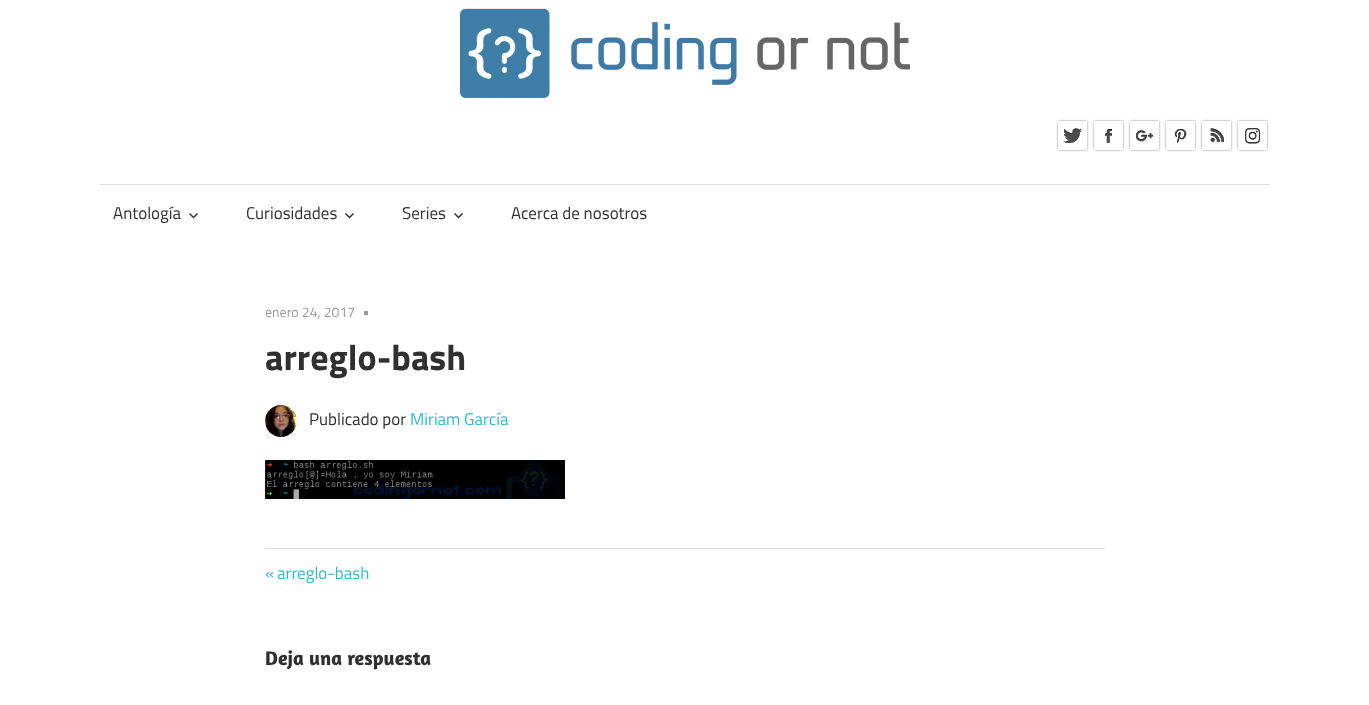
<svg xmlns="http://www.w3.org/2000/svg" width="1369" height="705">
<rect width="100%" height="100%" fill="#fff"/>
<image x="460" y="8" width="450" height="90" href="media/1.png"/>
<image x="1056" y="119" width="33" height="33" href="media/2.png"/>
<image x="1092" y="119" width="33" height="33" href="media/3.png"/>
<image x="1128" y="119" width="33" height="33" href="media/4.png"/>
<image x="1164" y="119" width="33" height="33" href="media/5.png"/>
<image x="1200" y="119" width="33" height="33" href="media/6.png"/>
<image x="1236" y="119" width="33" height="33" href="media/7.png"/>
<rect x="100" y="184" width="1170" height="1" fill="#ddd"/>
<text x="113" y="219" style="font-family:Titillium Web;font-size:17px;fill:#303030">Antología</text>
<image x="189" y="213" width="9" height="6" href="media/8.png"/>
<text x="246" y="219" style="font-family:Titillium Web;font-size:17px;fill:#303030">Curiosidades</text>
<image x="345" y="213" width="9" height="6" href="media/8.png"/>
<text x="402" y="219" style="font-family:Titillium Web;font-size:17px;fill:#303030">Series</text>
<image x="454" y="213" width="9" height="6" href="media/8.png"/>
<text x="511" y="219" style="font-family:Titillium Web;font-size:17px;fill:#303030">Acerca de nosotros</text>
<text x="265" y="317" style="font-family:Titillium Web;font-size:14px;fill:#999">enero 24, 2017</text>
<rect x="364" y="311" width="4" height="4" fill="#999"/>
<text x="265" y="370" style="font-family:Titillium Web;font-size:36px;font-weight:bold;fill:#303030">arreglo-bash</text>
<image x="265" y="405" width="32" height="32" href="media/9.png"/>
<text x="309" y="425" style="font-family:Titillium Web;font-size:17px;fill:#303030">Publicado por</text>
<text x="410" y="425" style="font-family:Titillium Web;font-size:17px;fill:#3bc">Miriam García</text>
<image x="265" y="460" width="300" height="39" href="media/10.png"/>
<rect x="265" y="548" width="840" height="1" fill="#ddd"/>
<text x="265" y="579" style="font-family:Titillium Web;font-size:17px;fill:#3bc">«</text>
<text x="277" y="579" style="font-family:Titillium Web;font-size:17px;fill:#3bc">arreglo-bash</text>
<text x="265" y="665" style="font-family:Amaranth;font-size:20px;font-weight:bold;fill:#303030">Deja una respuesta</text>
</svg>
